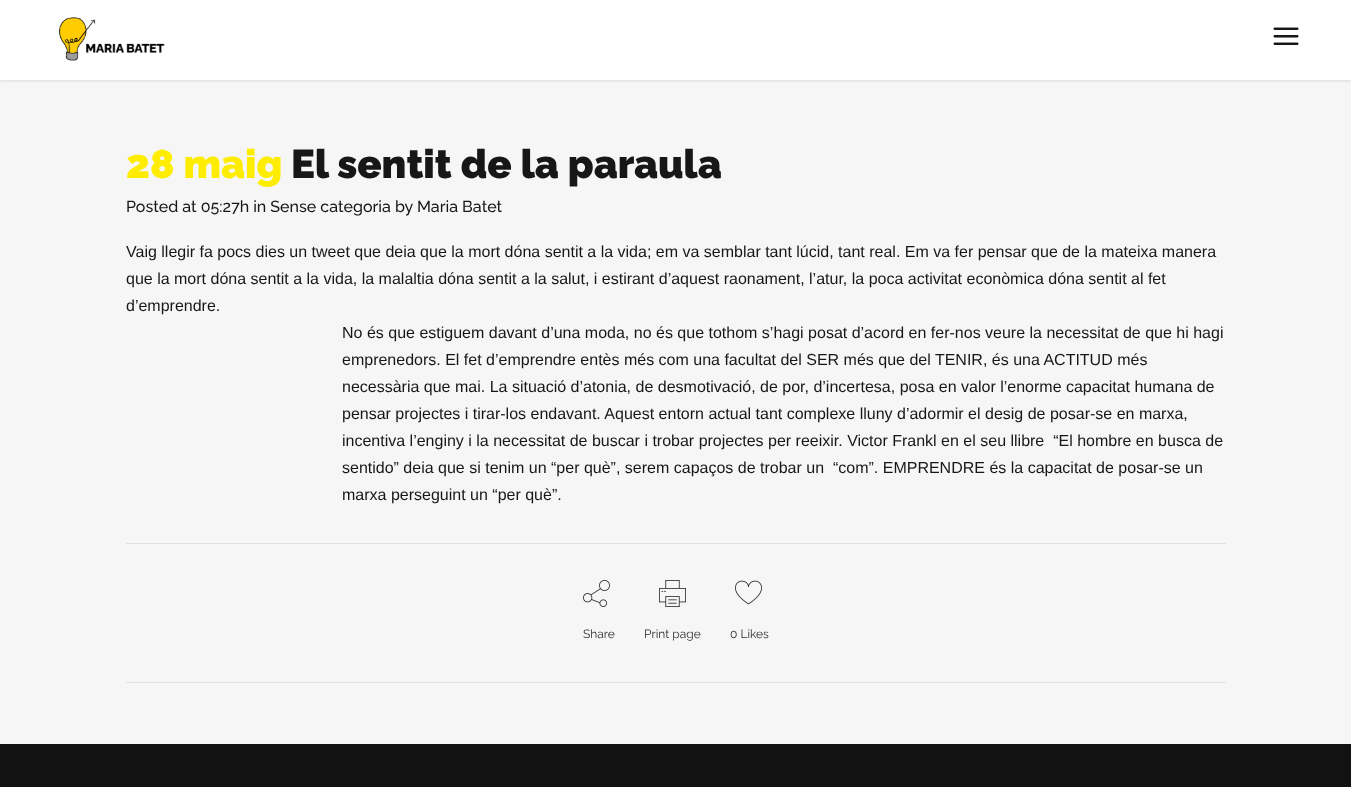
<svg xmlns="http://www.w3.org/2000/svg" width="1351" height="787">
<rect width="100%" height="100%" fill="#f6f6f6"/>
<rect y="1" width="1351" height="80" fill="#0000001c" filter="blur(1.5px)"/>
<rect width="1351" height="80" fill="#fff"/>
<image x="58" y="17" width="107" height="44" href="media/1.png"/>
<image x="1273" y="27" width="26" height="18" href="media/2.png"/>
<text x="126" y="178" style="font-family:Raleway;font-size:40px;font-weight:900;fill:#feed00">28 maig</text>
<text x="291" y="178" style="font-family:Raleway;font-size:40px;font-weight:900;fill:#171717">El sentit de la paraula</text>
<text x="126" y="212" style="font-family:Raleway;font-size:16px;font-weight:500;fill:#171717">Posted at 05:27h in Sense categoria by Maria Batet</text>
<text x="126" y="257" style="font-family:Liberation Sans;font-size:16px;fill:#171717">Vaig llegir fa pocs dies un tweet que deia que la mort dóna sentit a la vida; em va semblar tant lúcid, tant real. Em va fer pensar que de la mateixa manera</text>
<text x="126" y="284" style="font-family:Liberation Sans;font-size:16px;fill:#171717">que la mort dóna sentit a la vida, la malaltia dóna sentit a la salut, i estirant d’aquest raonament, l’atur, la poca activitat econòmica dóna sentit al fet</text>
<text x="126" y="311" style="font-family:Liberation Sans;font-size:16px;fill:#171717">d’emprendre.</text>
<text x="342" y="338" style="font-family:Liberation Sans;font-size:16px;fill:#171717">No és que estiguem davant d’una moda, no és que tothom s’hagi posat d’acord en fer-nos veure la necessitat de que hi hagi</text>
<text x="342" y="365" style="font-family:Liberation Sans;font-size:16px;fill:#171717">emprenedors. El fet d’emprendre entès més com una facultat del SER més que del TENIR, és una ACTITUD més</text>
<text x="342" y="392" style="font-family:Liberation Sans;font-size:16px;fill:#171717">necessària que mai. La situació d’atonia, de desmotivació, de por, d’incertesa, posa en valor l’enorme capacitat humana de</text>
<text x="342" y="419" style="font-family:Liberation Sans;font-size:16px;fill:#171717">pensar projectes i tirar-los endavant. Aquest entorn actual tant complexe lluny d’adormir el desig de posar-se en marxa,</text>
<text x="342" y="446" style="font-family:Liberation Sans;font-size:16px;fill:#171717" xml:space="preserve">incentiva l’enginy i la necessitat de buscar i trobar projectes per reeixir. Victor Frankl en el seu llibre  “El hombre en busca de</text>
<text x="342" y="473" style="font-family:Liberation Sans;font-size:16px;fill:#171717" xml:space="preserve">sentido” deia que si tenim un “per què”, serem capaços de trobar un  “com”. EMPRENDRE és la capacitat de posar-se un</text>
<text x="342" y="500" style="font-family:Liberation Sans;font-size:16px;fill:#171717">marxa perseguint un “per què”.</text>
<rect x="126" y="543" width="1100" height="1" fill="#e0e0e0"/>
<rect x="126" y="682" width="1100" height="1" fill="#e0e0e0"/>
<image x="583" y="580" width="27" height="27" href="media/3.png"/>
<text x="583" y="638" style="font-family:Raleway;font-size:12px;fill:#303030">Share</text>
<image x="659" y="580" width="27" height="27" href="media/4.png"/>
<text x="644" y="638" style="font-family:Raleway;font-size:12px;fill:#303030">Print page</text>
<image x="735" y="580" width="27" height="25" href="media/5.png"/>
<text x="730" y="638" style="font-family:Raleway;font-size:12px;fill:#303030">0 Likes</text>
<rect y="744" width="1351" height="43" fill="#121212"/>
</svg>
